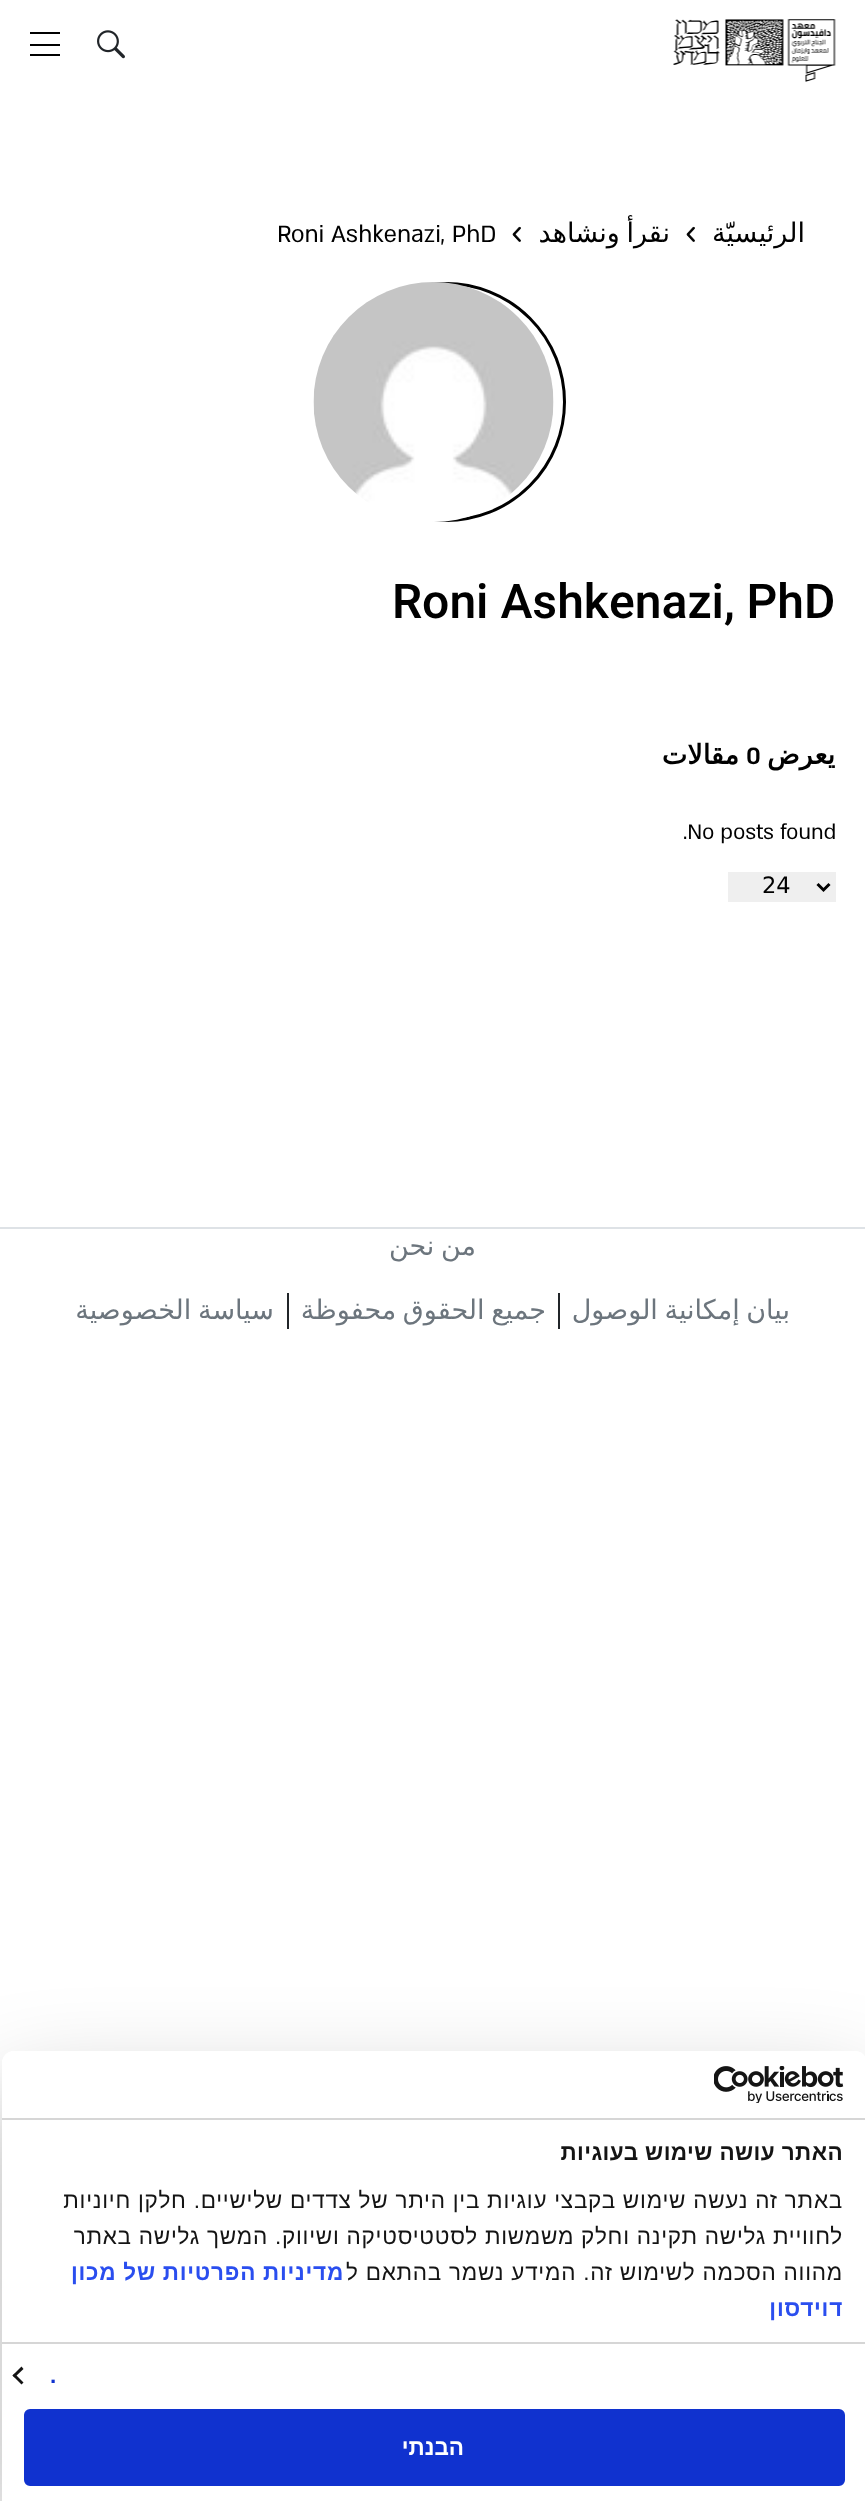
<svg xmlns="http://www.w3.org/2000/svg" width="865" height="2501">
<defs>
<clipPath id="clip1"><path d="M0 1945h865v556h-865zm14 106h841c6.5 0 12 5.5 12 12v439h-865v-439c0-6.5 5.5-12 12-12z" clip-rule="evenodd"/></clipPath>
</defs>
<rect width="100%" height="100%" fill="#fff"/>
<image x="673" y="19" width="163" height="63" href="media/1.png"/>
<image x="97" y="30" width="28" height="29" href="media/2.png"/>
<rect x="30" y="32" width="30" height="2" fill="#000"/>
<rect x="30" y="44" width="30" height="2" fill="#000"/>
<rect x="30" y="54" width="30" height="2" fill="#000"/>
<text x="805" y="242" style="font-family:DejaVu Sans;font-size:27px;direction:rtl;fill:#000">الرئيسيّة</text>
<image x="686" y="226" width="9" height="16" href="media/3.png"/>
<text x="670" y="242" word-spacing="-2" style="font-family:DejaVu Sans;font-size:27px;direction:rtl;fill:#000">نقرأ ونشاهد</text>
<image x="512" y="226" width="9" height="16" href="media/3.png"/>
<text x="277" y="242" style="font-family:'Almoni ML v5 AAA';font-size:27px;fill:#000">Roni Ashkenazi, PhD</text>
<circle cx="446" cy="402" r="118.5" fill="none" stroke="#000" stroke-width="3"/>
<image x="313" y="282" width="241" height="240" href="media/4.png"/>
<text x="392" y="618" style="font-family:Heebo;font-size:48px;font-weight:500;fill:#000">Roni Ashkenazi, PhD</text>
<text x="835" y="764" style="font-family:DejaVu Sans;font-size:27px;font-weight:bold;direction:rtl;fill:#000">يعرض</text>
<text x="746" y="764" style="font-family:'Almoni ML v5 AAA';font-size:27px;font-weight:bold;fill:#000">0</text>
<text x="739" y="764" style="font-family:DejaVu Sans;font-size:27px;font-weight:bold;direction:rtl;fill:#000">مقالات</text>
<text x="683" y="839" style="font-family:'Almoni ML v5 AAA';font-size:24px;fill:#000">.No posts found</text>
<rect x="728" y="872" width="108" height="30" fill="#efefef"/>
<path d="M817.5 884l6 6l6-6" fill="none" stroke="#000" stroke-width="3"/>
<text x="762" y="893" style="font-family:DejaVu Sans;font-size:22.5px;fill:#000">24</text>
<rect y="1227" width="865" height="2" fill="#dee2e6"/>
<text x="476" y="1255" word-spacing="-2" style="font-family:DejaVu Sans;font-size:27px;direction:rtl;fill:#6c757d">من نحن</text>
<text x="790" y="1319" word-spacing="-2" style="font-family:DejaVu Sans;font-size:27px;direction:rtl;fill:#6c757d">بيان إمكانية الوصول</text>
<rect x="558" y="1293" width="2" height="36" fill="#212529"/>
<text x="546" y="1319" word-spacing="-2" style="font-family:DejaVu Sans;font-size:27px;direction:rtl;fill:#6c757d">جميع الحقوق محفوظة</text>
<rect x="287" y="1293" width="2" height="36" fill="#212529"/>
<text x="274" y="1319" word-spacing="-2" style="font-family:DejaVu Sans;font-size:27px;direction:rtl;fill:#6c757d">سياسة الخصوصية</text>
<g clip-path="url(#clip1)">
<rect x="2" y="2099" width="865" height="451" rx="12" fill="#0000004d" filter="blur(51px)"/>
</g>
<path d="M14 2051h841c6.5 0 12 5.5 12 12v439h-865v-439c0-6.5 5.5-12 12-12z" fill="#fff"/>
<rect x="2" y="2118" width="863" height="2" fill="#d6d6d6"/>
<image x="714" y="2066" width="130" height="37" href="media/5.png"/>
<rect x="2" y="2342" width="863" height="2" fill="#d6d6d6"/>
<text x="843" y="2160" style="font-family:Liberation Sans;font-size:22.5px;font-weight:bold;letter-spacing:0.4px;direction:rtl;fill:#141414">האתר עושה שימוש בעוגיות</text>
<text x="843" y="2208" style="font-family:Liberation Sans;font-size:22.5px;letter-spacing:0.75px;direction:rtl;fill:#141414">באתר זה נעשה שימוש בקבצי עוגיות בין היתר של צדדים שלישיים. חלקן חיוניות</text>
<text x="843" y="2244" style="font-family:Liberation Sans;font-size:22.5px;letter-spacing:0.75px;direction:rtl;fill:#141414">לחוויית גלישה תקינה וחלק משמשות לסטטיסטיקה ושיווק. המשך גלישה באתר</text>
<text x="843" y="2280" style="font-family:Liberation Sans;font-size:22.5px;letter-spacing:0.75px;direction:rtl;fill:#141414">מהווה הסכמה לשימוש זה. המידע נשמר בהתאם ל</text>
<text x="344" y="2280" style="font-family:Liberation Sans;font-size:22.5px;font-weight:bold;letter-spacing:0.75px;direction:rtl;fill:#2a4eef">מדיניות הפרטיות של מכון</text>
<text x="843" y="2316" style="font-family:Liberation Sans;font-size:22.5px;font-weight:bold;letter-spacing:0.75px;direction:rtl;fill:#2a4eef">דוידסון</text>
<text x="50" y="2383" style="font-family:Liberation Sans;font-size:22.5px;font-weight:bold;fill:#1032cf">.</text>
<path d="M21.5 2384.5l-9-9l2-2l9 9z" fill="#141414"/>
<path d="M14.5 2377.5l-2-2l9-9l2 2.5z" fill="#141414"/>
<rect x="25.5" y="2410.5" width="818" height="74" rx="4.5" fill="#1032cf" stroke="#1032cf" stroke-width="3"/>
<text x="464" y="2455" style="font-family:Liberation Sans;font-size:22.5px;font-weight:bold;direction:rtl;fill:#fff">הבנתי</text>
</svg>
